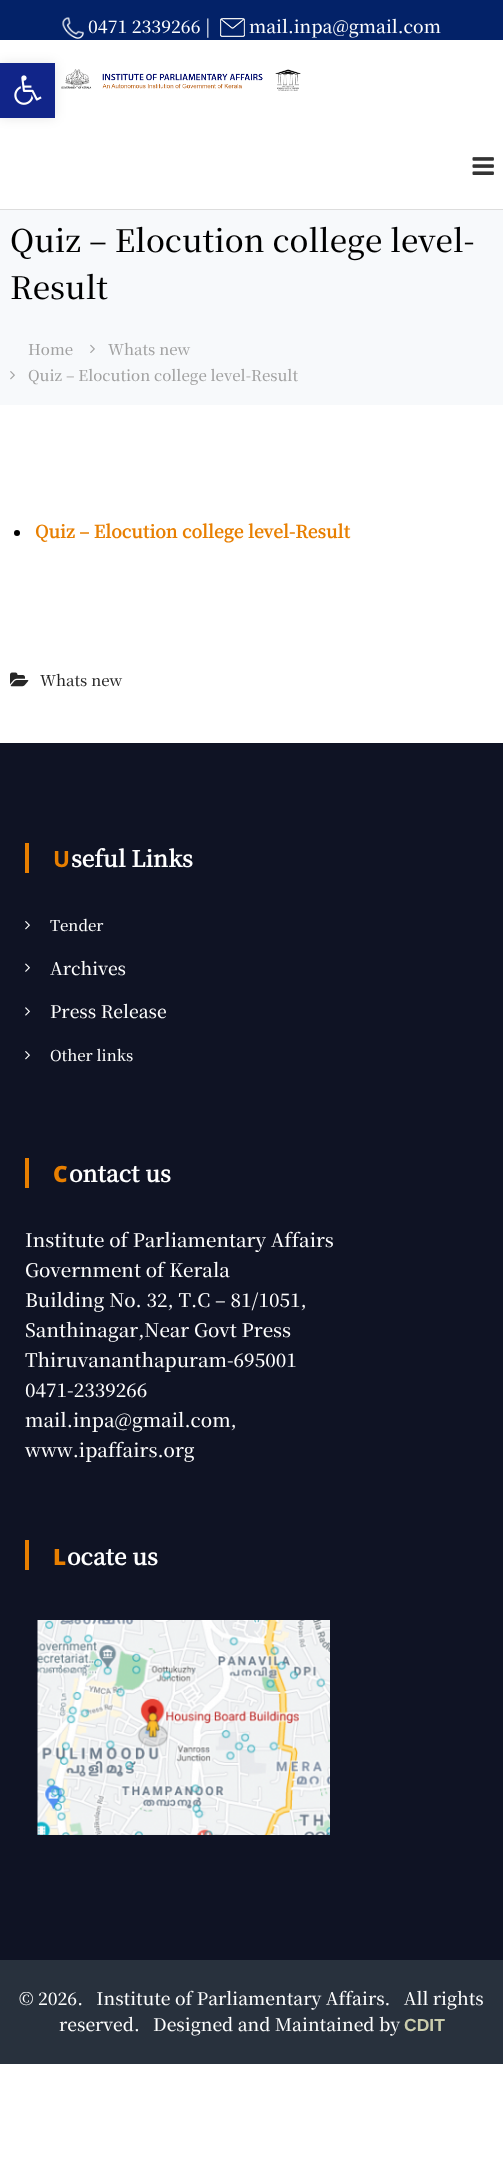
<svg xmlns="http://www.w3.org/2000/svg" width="503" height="2159">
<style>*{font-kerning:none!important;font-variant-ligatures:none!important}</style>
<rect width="100%" height="100%" fill="#fff"/>
<rect width="503" height="40" fill="#032268"/>
<image x="62" y="17" width="22" height="22" href="media/1.png"/>
<text x="88" y="33" style="font-family:Noto Serif SC;font-size:17.5px;font-weight:200;fill:#fff">0471 2339266 |</text>
<image x="220" y="18" width="25" height="19" href="media/2.png"/>
<text x="249" y="33" style="font-family:Noto Serif SC;font-size:17.5px;font-weight:200;fill:#fff">mail.inpa@gmail.com</text>
<rect y="209" width="503" height="1" fill="#ddd"/>
<image x="61" y="69" width="240" height="22" href="media/3.png"/>
<image x="472" y="157" width="22" height="18" href="media/4.png"/>
<rect y="210" width="503" height="195" fill="#f7f9fb"/>
<text x="10" y="252" style="font-family:Noto Serif SC;font-size:31.25px;font-weight:200;fill:#000">Quiz – Elocution college level-</text>
<text x="10" y="299" style="font-family:Noto Serif SC;font-size:31.25px;font-weight:200;fill:#000">Result</text>
<text x="28" y="355" style="font-family:Noto Serif SC;font-size:15px;font-weight:200;fill:#a1a1a1">Home</text>
<image x="90" y="344" width="5" height="9" href="media/5.png"/>
<text x="108" y="355" style="font-family:Noto Serif SC;font-size:15px;font-weight:200;fill:#a1a1a1">Whats new</text>
<image x="10" y="371" width="5" height="9" href="media/6.png"/>
<text x="28" y="381" style="font-family:Noto Serif SC;font-size:15px;font-weight:200;fill:#a1a1a1">Quiz – Elocution college level-Result</text>
<circle cx="17" cy="533" r="3" fill="#000"/>
<text x="35" y="538" style="font-family:Noto Serif SC;font-size:17.5px;font-weight:bold;fill:#e87f00">Quiz – Elocution college level-Result</text>
<image x="10" y="672" width="19" height="15" href="media/7.png"/>
<text x="40" y="686" style="font-family:Noto Serif SC;font-size:15px;font-weight:200;fill:#262626">Whats new</text>
<rect y="743" width="503" height="1217" fill="#0f1324"/>
<rect x="25" y="843" width="4" height="30" fill="#e87f00"/>
<text x="53" y="867" style="font-family:Noto Sans;font-size:22.5px;font-weight:bold;fill:#e87f00">U</text>
<text x="71" y="867" style="font-family:Noto Serif SC;font-size:22.5px;font-weight:bold;fill:#fff">seful Links</text>
<image x="25" y="921" width="5" height="9" href="media/8.png"/>
<text x="50" y="931" style="font-family:Noto Serif SC;font-size:15px;font-weight:200;fill:#fff">Tender</text>
<image x="25" y="963" width="5" height="9" href="media/9.png"/>
<text x="50" y="975" style="font-family:Noto Serif SC;font-size:17.5px;font-weight:200;fill:#fff">Archives</text>
<image x="25" y="1007" width="5" height="9" href="media/10.png"/>
<text x="50" y="1018" style="font-family:Noto Serif SC;font-size:17.5px;font-weight:200;fill:#fff">Press Release</text>
<image x="25" y="1051" width="5" height="9" href="media/8.png"/>
<text x="50" y="1061" style="font-family:Noto Serif SC;font-size:15px;font-weight:200;fill:#fff">Other links</text>
<rect x="25" y="1158" width="4" height="30" fill="#e87f00"/>
<text x="53" y="1182" style="font-family:Noto Sans;font-size:22.5px;font-weight:900;fill:#e87f00">C</text>
<text x="69" y="1182" style="font-family:Noto Serif SC;font-size:22.5px;font-weight:bold;fill:#fff">ontact us</text>
<text x="25" y="1247" style="font-family:Noto Serif SC;font-size:18.75px;font-weight:200;fill:#fff">Institute of Parliamentary Affairs</text>
<text x="25" y="1277" style="font-family:Noto Serif SC;font-size:18.75px;font-weight:200;fill:#fff">Government of Kerala</text>
<text x="25" y="1307" style="font-family:Noto Serif SC;font-size:18.75px;font-weight:200;fill:#fff">Building No. 32, T.C – 81/1051,</text>
<text x="25" y="1337" style="font-family:Noto Serif SC;font-size:18.75px;font-weight:200;fill:#fff">Santhinagar,Near Govt Press</text>
<text x="25" y="1367" style="font-family:Noto Serif SC;font-size:18.75px;font-weight:200;fill:#fff">Thiruvananthapuram-695001</text>
<text x="25" y="1397" style="font-family:Noto Serif SC;font-size:18.75px;font-weight:200;fill:#fff">0471-2339266</text>
<text x="25" y="1427" style="font-family:Noto Serif SC;font-size:18.75px;font-weight:200;fill:#fff">mail.inpa@gmail.com,</text>
<text x="25" y="1457" style="font-family:Noto Serif SC;font-size:18.75px;font-weight:200;fill:#fff">www.ipaffairs.org</text>
<rect x="25" y="1540" width="4" height="30" fill="#e87f00"/>
<text x="53" y="1565" style="font-family:Noto Sans;font-size:22.5px;font-weight:900;fill:#e87f00">L</text>
<text x="67" y="1565" style="font-family:Noto Serif SC;font-size:22.5px;font-weight:bold;fill:#fff">ocate us</text>
<image x="37" y="1620" width="293" height="215" href="media/11.png"/>
<rect y="1960" width="503" height="104" fill="#28313d"/>
<text x="19" y="2005" style="font-family:Noto Serif SC;font-size:17.5px;font-weight:200;fill:#fff" xml:space="preserve">© 2026.   Institute of Parliamentary Affairs.   All rights</text>
<text x="59" y="2031" style="font-family:Noto Serif SC;font-size:17.5px;font-weight:200;fill:#fff" xml:space="preserve">reserved.   Designed and Maintained by</text>
<text x="404" y="2031" style="font-family:Liberation Sans;font-size:17.5px;font-weight:bold;fill:#caccac">CDIT</text>
<rect y="63" width="55" height="55" fill="#0000001a" filter="blur(6px)"/>
<rect y="63" width="55" height="55" fill="#112589"/>
<image x="14" y="75" width="28" height="30" href="media/12.png"/>
</svg>
